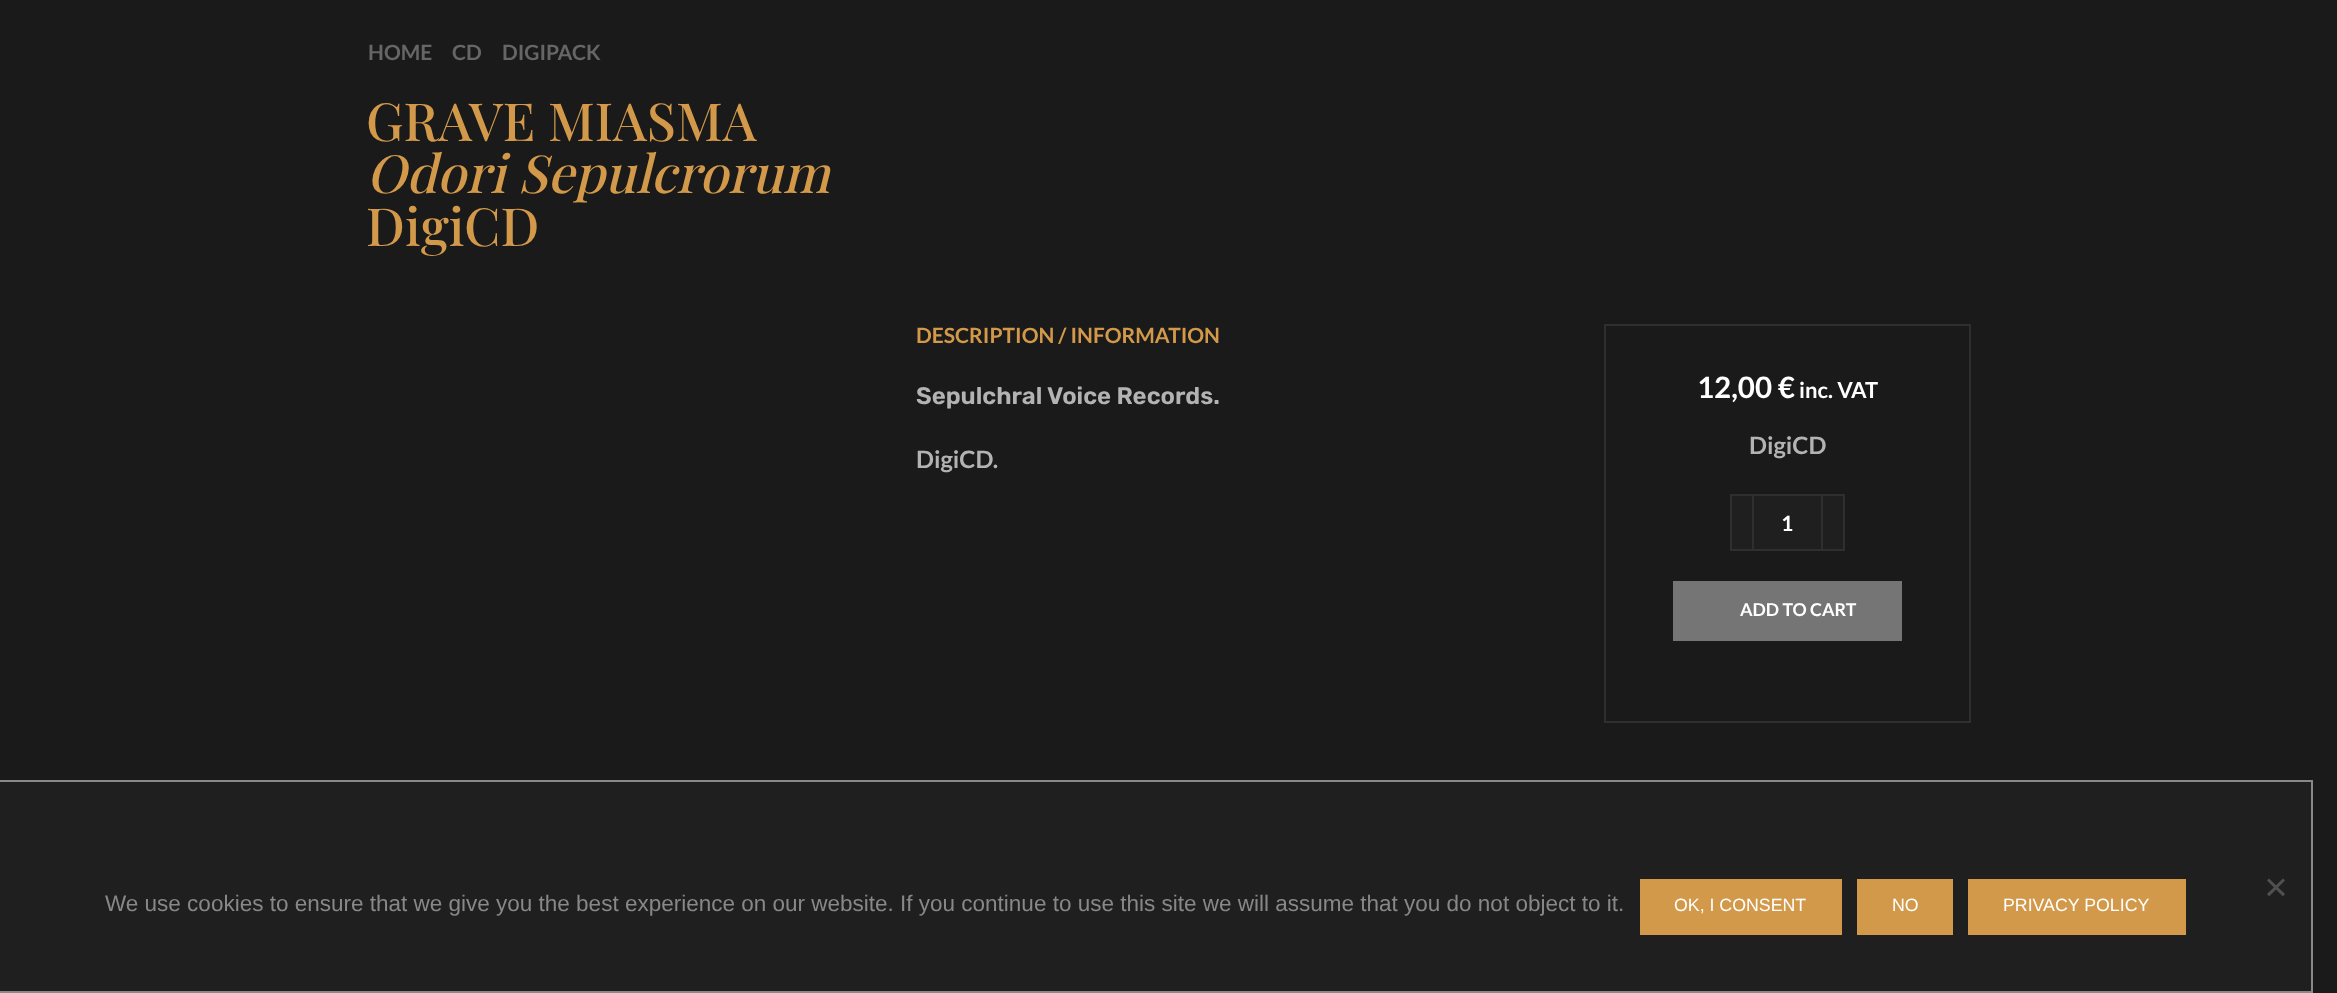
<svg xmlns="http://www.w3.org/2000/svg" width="2337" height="993">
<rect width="100%" height="100%" fill="#1a1a1a"/>
<text x="368" y="60" style="font-family:Lato;font-size:21px;font-weight:bold;fill:#666">HOME</text>
<text x="452" y="60" style="font-family:Lato;font-size:21px;font-weight:bold;fill:#666">CD</text>
<text x="502" y="60" style="font-family:Lato;font-size:21px;font-weight:bold;fill:#666">DIGIPACK</text>
<text x="366" y="141" style="font-family:Playfair Display;font-size:52.5px;font-weight:500;fill:#d3994a">GRAVE MIASMA</text>
<text x="366" y="193" style="font-family:Playfair Display;font-size:52.5px;font-weight:500;font-style:italic;fill:#d3994a">Odori Sepulcrorum</text>
<text x="366" y="246" style="font-family:Playfair Display;font-size:52.5px;font-weight:500;fill:#d3994a">DigiCD</text>
<text x="916" y="343" style="font-family:Lato;font-size:21px;font-weight:bold;fill:#d3994a">DESCRIPTION / INFORMATION</text>
<text x="916" y="404" style="font-family:Rubik;font-size:24px;font-weight:600;fill:#b3b3b3">Sepulchral Voice Records.</text>
<text x="916" y="468" style="font-family:Lato;font-size:24px;font-weight:bold;fill:#b3b3b3">DigiCD.</text>
<rect x="1605" y="325" width="365" height="397" fill="none" stroke="#2f2f2f" stroke-width="2"/>
<text x="1697" y="398" style="font-family:Lato;font-size:29.5px;font-weight:bold;fill:#fff">12,00 €</text>
<text x="1799" y="398" style="font-family:Lato;font-size:22px;font-weight:bold;fill:#fff">inc. VAT</text>
<text x="1749" y="454" style="font-family:Lato;font-size:24px;font-weight:bold;fill:#b3b3b3">DigiCD</text>
<rect x="1731" y="495" width="22" height="55" fill="#1f1f1f" stroke="#2f2f2f" stroke-width="2"/>
<rect x="1754" y="496" width="67" height="53" fill="#1f1f1f"/>
<rect x="1754" y="494" width="67" height="2" fill="#2f2f2f"/>
<rect x="1754" y="549" width="67" height="2" fill="#2f2f2f"/>
<text x="1781" y="531" style="font-family:Lato;font-size:21px;font-weight:bold;fill:#fff">1</text>
<rect x="1822" y="495" width="22" height="55" fill="#1f1f1f" stroke="#2f2f2f" stroke-width="2"/>
<rect x="1673" y="581" width="229" height="60" fill="#757575"/>
<text x="1740" y="616" style="font-family:Lato;font-size:17.75px;font-weight:bold;fill:#fff">ADD TO CART</text>
<rect x="-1" y="781" width="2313" height="211" fill="#1f1f1f" stroke="#888" stroke-width="2"/>
<path d="M2283 878.5l2 2l-16 16l-2-2.5z" fill="#505050"/>
<path d="M2267 880.5l2-2l16 15.5l-2 2.5z" fill="#505050"/>
<text x="105" y="911" style="font-family:Liberation Sans;font-size:22.5px;fill:#888">We use cookies to ensure that we give you the best experience on our website. If you continue to use this site we will assume that you do not object to it.</text>
<rect x="1640" y="879" width="202" height="56" fill="#d3994a"/>
<text x="1674" y="911" style="font-family:Liberation Sans;font-size:17.75px;fill:#fff">OK, I CONSENT</text>
<rect x="1857" y="879" width="96" height="56" fill="#d3994a"/>
<text x="1892" y="911" style="font-family:Liberation Sans;font-size:17.75px;fill:#fff">NO</text>
<rect x="1968" y="879" width="218" height="56" fill="#d3994a"/>
<text x="2003" y="911" style="font-family:Liberation Sans;font-size:17.75px;fill:#fff">PRIVACY POLICY</text>
</svg>
